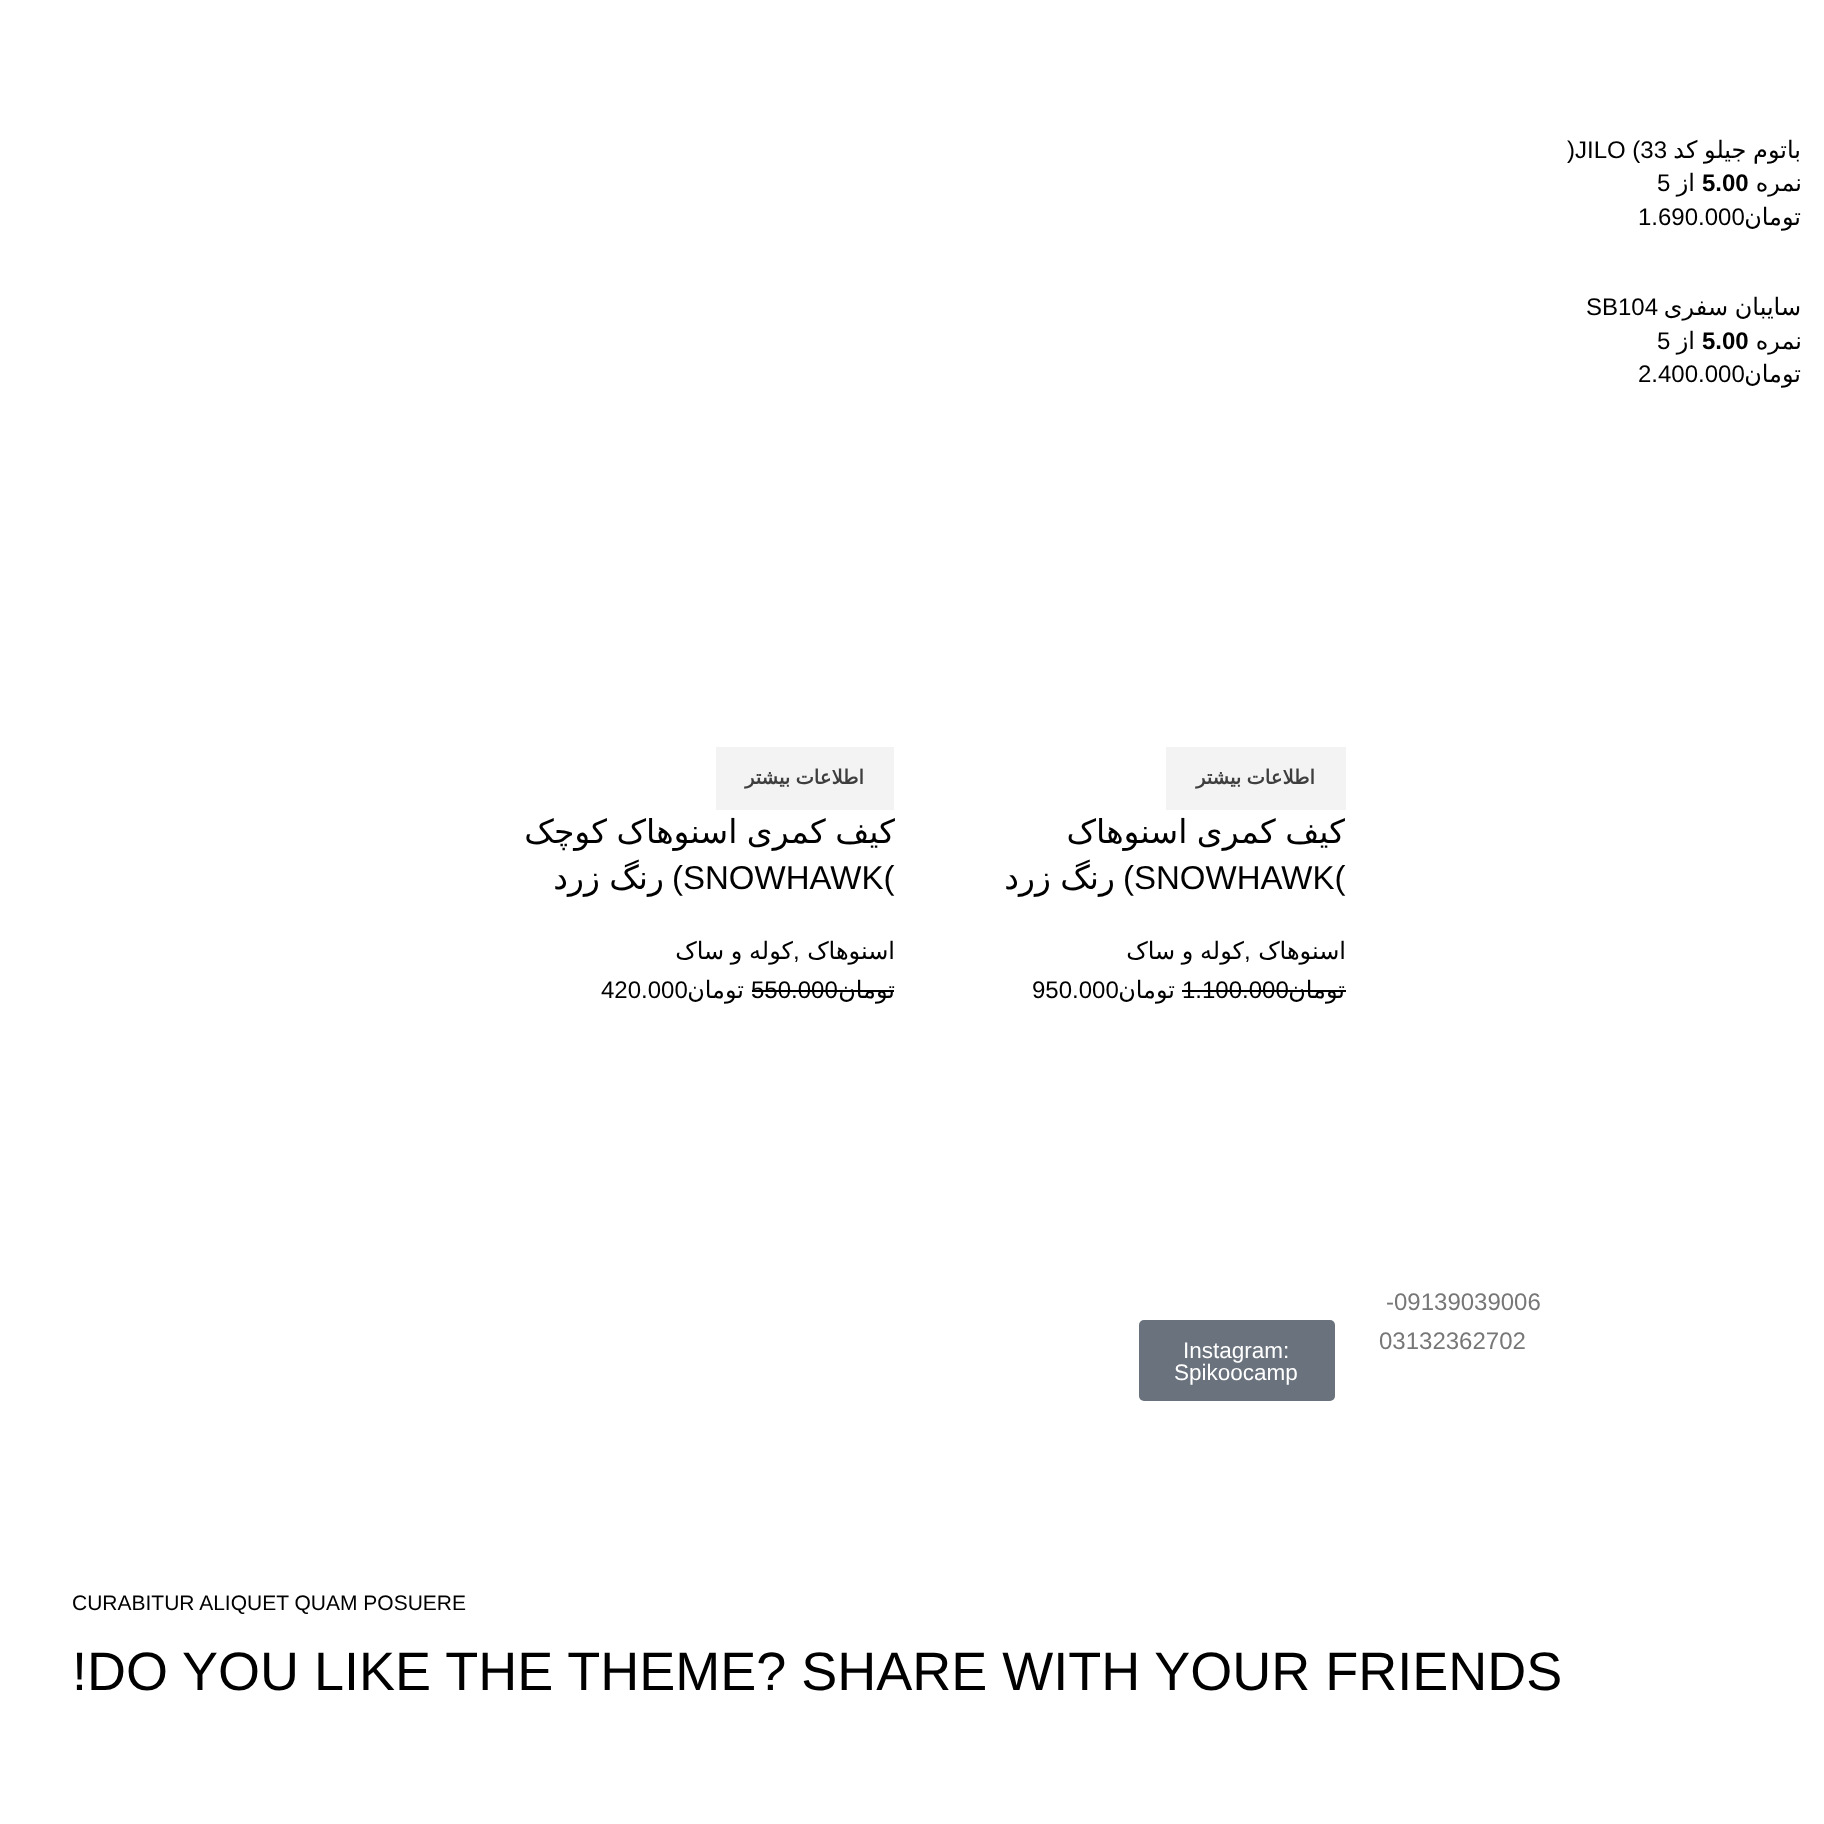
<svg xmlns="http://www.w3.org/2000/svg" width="1824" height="1824">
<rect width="100%" height="100%" fill="#fff"/>
<text x="1567" y="158" style="font-family:Liberation Sans;font-size:24px;fill:#000">)JILO (33</text>
<text x="1801" y="158" word-spacing="-1" style="font-family:DejaVu Sans;font-size:24px;direction:rtl;fill:#000">باتوم جیلو کد</text>
<text x="1657" y="191" style="font-family:Liberation Sans;font-size:24px;fill:#000">5</text>
<text x="1695" y="191" style="font-family:DejaVu Sans;font-size:24px;direction:rtl;fill:#000">از</text>
<text x="1702" y="191" style="font-family:Liberation Sans;font-size:24px;font-weight:bold;fill:#000">5.00</text>
<text x="1802" y="191" style="font-family:DejaVu Sans;font-size:24px;direction:rtl;fill:#000">نمره</text>
<text x="1638" y="225" style="font-family:Liberation Sans;font-size:24px;fill:#000">1.690.000</text>
<text x="1801" y="225" style="font-family:DejaVu Sans;font-size:24px;direction:rtl;fill:#000">تومان</text>
<text x="1586" y="315" style="font-family:Liberation Sans;font-size:24px;fill:#000">SB104</text>
<text x="1801" y="315" word-spacing="-1" style="font-family:DejaVu Sans;font-size:24px;direction:rtl;fill:#000">سایبان سفری</text>
<text x="1657" y="349" style="font-family:Liberation Sans;font-size:24px;fill:#000">5</text>
<text x="1695" y="349" style="font-family:DejaVu Sans;font-size:24px;direction:rtl;fill:#000">از</text>
<text x="1702" y="349" style="font-family:Liberation Sans;font-size:24px;font-weight:bold;fill:#000">5.00</text>
<text x="1802" y="349" style="font-family:DejaVu Sans;font-size:24px;direction:rtl;fill:#000">نمره</text>
<text x="1638" y="382" style="font-family:Liberation Sans;font-size:24px;fill:#000">2.400.000</text>
<text x="1801" y="382" style="font-family:DejaVu Sans;font-size:24px;direction:rtl;fill:#000">تومان</text>
<rect x="716" y="747" width="178" height="63" fill="#f3f3f3"/>
<text x="864" y="784" word-spacing="-1" style="font-family:DejaVu Sans;font-size:19.5px;font-weight:bold;direction:rtl;fill:#3e3e3e">اطلاعات بیشتر</text>
<text x="895" y="843" word-spacing="-1" style="font-family:DejaVu Sans;font-size:33px;direction:rtl;fill:#000">کیف کمری اسنوهاک کوچک</text>
<text x="664" y="889" word-spacing="-1" style="font-family:DejaVu Sans;font-size:33px;direction:rtl;fill:#000">رنگ زرد</text>
<text x="683" y="889" style="font-family:Liberation Sans;font-size:33px;direction:rtl;fill:#000">)</text>
<text x="683" y="889" style="font-family:Liberation Sans;font-size:33px;fill:#000">SNOWHAWK(</text>
<text x="793" y="959" word-spacing="-1" style="font-family:DejaVu Sans;font-size:24px;direction:rtl;fill:#000">کوله و ساک</text>
<text x="793" y="959" style="font-family:Liberation Sans;font-size:24px;fill:#000">,</text>
<text x="895" y="959" style="font-family:DejaVu Sans;font-size:24px;direction:rtl;fill:#000">اسنوهاک</text>
<text x="601" y="998" style="font-family:Liberation Sans;font-size:24px;fill:#000">420.000</text>
<text x="744" y="998" style="font-family:DejaVu Sans;font-size:24px;direction:rtl;fill:#000">تومان</text>
<text x="751" y="998" style="font-family:Liberation Sans;font-size:24px;fill:#000">550.000</text>
<rect x="752" y="990" width="85" height="2" fill="#000"/>
<text x="895" y="998" style="font-family:DejaVu Sans;font-size:24px;direction:rtl;fill:#000">تومان</text>
<rect x="837" y="990" width="57" height="2" fill="#000"/>
<rect x="1166" y="747" width="180" height="63" fill="#f3f3f3"/>
<text x="1315" y="784" word-spacing="-1" style="font-family:DejaVu Sans;font-size:19.5px;font-weight:bold;direction:rtl;fill:#3e3e3e">اطلاعات بیشتر</text>
<text x="1345" y="843" word-spacing="-1" style="font-family:DejaVu Sans;font-size:33px;direction:rtl;fill:#000">کیف کمری اسنوهاک</text>
<text x="1115" y="889" word-spacing="-1" style="font-family:DejaVu Sans;font-size:33px;direction:rtl;fill:#000">رنگ زرد</text>
<text x="1134" y="889" style="font-family:Liberation Sans;font-size:33px;direction:rtl;fill:#000">)</text>
<text x="1134" y="889" style="font-family:Liberation Sans;font-size:33px;fill:#000">SNOWHAWK(</text>
<text x="1244" y="959" word-spacing="-1" style="font-family:DejaVu Sans;font-size:24px;direction:rtl;fill:#000">کوله و ساک</text>
<text x="1244" y="959" style="font-family:Liberation Sans;font-size:24px;fill:#000">,</text>
<text x="1346" y="959" style="font-family:DejaVu Sans;font-size:24px;direction:rtl;fill:#000">اسنوهاک</text>
<text x="1032" y="998" style="font-family:Liberation Sans;font-size:24px;fill:#000">950.000</text>
<text x="1175" y="998" style="font-family:DejaVu Sans;font-size:24px;direction:rtl;fill:#000">تومان</text>
<text x="1182" y="998" style="font-family:Liberation Sans;font-size:24px;fill:#000">1.100.000</text>
<text x="1345" y="998" style="font-family:DejaVu Sans;font-size:24px;direction:rtl;fill:#000">تومان</text>
<rect x="1289" y="990" width="57" height="2" fill="#000"/>
<rect x="1182" y="990" width="107" height="2" fill="#000"/>
<text x="1386" y="1310" style="font-family:Liberation Sans;font-size:24px;fill:#777">-09139039006</text>
<text x="1379" y="1349" style="font-family:Liberation Sans;font-size:24px;fill:#777">03132362702</text>
<rect x="1139" y="1320" width="196" height="81" rx="5" fill="#69727d"/>
<text x="1183" y="1358" style="font-family:Liberation Sans;font-size:22.5px;fill:#fff">Instagram:</text>
<text x="1174" y="1380" style="font-family:Liberation Sans;font-size:22.5px;fill:#fff">Spikoocamp</text>
<text x="72" y="1610" style="font-family:Liberation Sans;font-size:21px;fill:#000">CURABITUR ALIQUET QUAM POSUERE</text>
<text x="72" y="1690" style="font-family:Liberation Sans;font-size:54px;fill:#000">!DO YOU LIKE THE THEME? SHARE WITH YOUR FRIENDS</text>
</svg>
